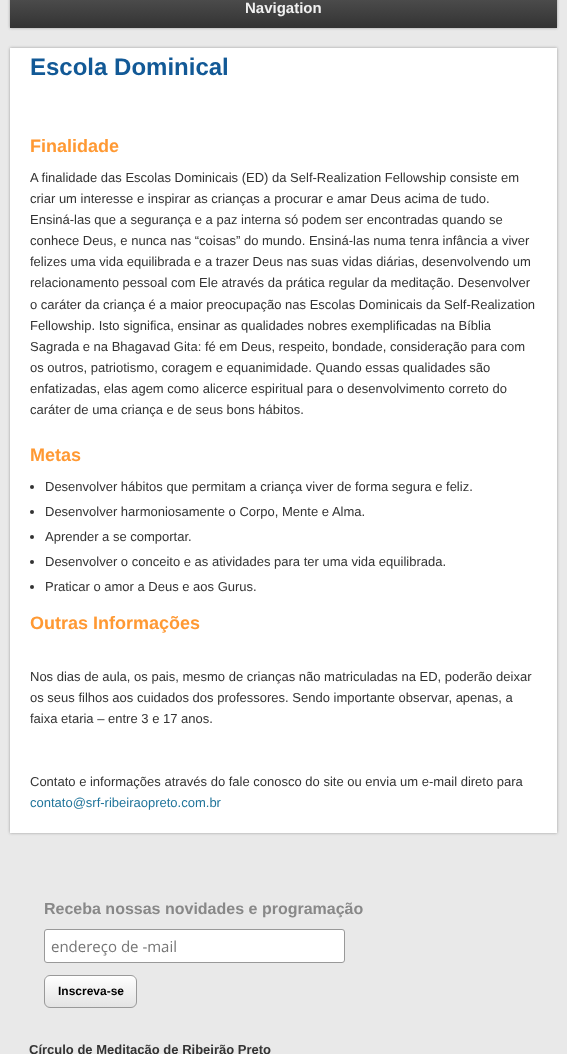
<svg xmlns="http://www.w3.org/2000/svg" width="567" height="1054">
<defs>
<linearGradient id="g1" gradientUnits="userSpaceOnUse" x1="284" y1="-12" x2="284" y2="28"><stop offset="0" stop-color="#555"/><stop offset="1" stop-color="#333"/></linearGradient>
<clipPath id="clip1"><rect x="44" y="975" width="93" height="33" rx="6"/></clipPath>
<linearGradient id="g2" gradientUnits="userSpaceOnUse" x1="91" y1="976" x2="91" y2="1007"><stop offset="0" stop-color="#fff"/><stop offset="1" stop-color="#e3e3e3"/></linearGradient>
</defs>
<rect width="100%" height="100%" fill="#e9e9e9"/>
<rect x="10" y="-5" width="547" height="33" fill="#999" filter="blur(1.5px)"/>
<rect x="10" width="547" height="28" fill="url(#g1)"/>
<text x="245" y="13" style="font-family:Liberation Sans;font-size:15px;font-weight:bold;fill:#f0f0f0">Navigation</text>
<rect x="10" y="48" width="547" height="785" fill="#999" filter="blur(1.5px)"/>
<rect x="10" y="48" width="547" height="785" fill="#fff"/>
<text x="30" y="75" style="font-family:Liberation Sans;font-size:24px;font-weight:bold;fill:#125996">Escola Dominical</text>
<text x="30" y="152" style="font-family:Liberation Sans;font-size:18px;font-weight:bold;fill:#f93">Finalidade</text>
<text x="30" y="182" style="font-family:Liberation Sans;font-size:13px;fill:#333">A finalidade das Escolas Dominicais (ED) da Self-Realization Fellowship consiste em</text>
<text x="30" y="203" style="font-family:Liberation Sans;font-size:13px;fill:#333">criar um interesse e inspirar as crianças a procurar e amar Deus acima de tudo.</text>
<text x="30" y="224" style="font-family:Liberation Sans;font-size:13px;fill:#333">Ensiná-las que a segurança e a paz interna só podem ser encontradas quando se</text>
<text x="30" y="245" style="font-family:Liberation Sans;font-size:13px;fill:#333">conhece Deus, e nunca nas “coisas” do mundo. Ensiná-las numa tenra infância a viver</text>
<text x="30" y="266" style="font-family:Liberation Sans;font-size:13px;fill:#333">felizes uma vida equilibrada e a trazer Deus nas suas vidas diárias, desenvolvendo um</text>
<text x="30" y="287" style="font-family:Liberation Sans;font-size:13px;fill:#333">relacionamento pessoal com Ele através da prática regular da meditação. Desenvolver</text>
<text x="30" y="309" style="font-family:Liberation Sans;font-size:13px;fill:#333">o caráter da criança é a maior preocupação nas Escolas Dominicais da Self-Realization</text>
<text x="30" y="330" style="font-family:Liberation Sans;font-size:13px;fill:#333">Fellowship. Isto significa, ensinar as qualidades nobres exemplificadas na Bíblia</text>
<text x="30" y="351" style="font-family:Liberation Sans;font-size:13px;fill:#333">Sagrada e na Bhagavad Gita: fé em Deus, respeito, bondade, consideração para com</text>
<text x="30" y="372" style="font-family:Liberation Sans;font-size:13px;fill:#333">os outros, patriotismo, coragem e equanimidade. Quando essas qualidades são</text>
<text x="30" y="393" style="font-family:Liberation Sans;font-size:13px;fill:#333">enfatizadas, elas agem como alicerce espiritual para o desenvolvimento correto do</text>
<text x="30" y="414" style="font-family:Liberation Sans;font-size:13px;fill:#333">caráter de uma criança e de seus bons hábitos.</text>
<text x="30" y="461" style="font-family:Liberation Sans;font-size:18px;font-weight:bold;fill:#f93">Metas</text>
<circle cx="32" cy="487" r="2" fill="#333"/>
<text x="45" y="491" style="font-family:Liberation Sans;font-size:13px;fill:#333">Desenvolver hábitos que permitam a criança viver de forma segura e feliz.</text>
<circle cx="32" cy="512" r="2" fill="#333"/>
<text x="45" y="516" style="font-family:Liberation Sans;font-size:13px;fill:#333">Desenvolver harmoniosamente o Corpo, Mente e Alma.</text>
<circle cx="32" cy="537" r="2" fill="#333"/>
<text x="45" y="541" style="font-family:Liberation Sans;font-size:13px;fill:#333">Aprender a se comportar.</text>
<circle cx="32" cy="562" r="2" fill="#333"/>
<text x="45" y="566" style="font-family:Liberation Sans;font-size:13px;fill:#333">Desenvolver o conceito e as atividades para ter uma vida equilibrada.</text>
<circle cx="32" cy="587" r="2" fill="#333"/>
<text x="45" y="591" style="font-family:Liberation Sans;font-size:13px;fill:#333">Praticar o amor a Deus e aos Gurus.</text>
<text x="30" y="629" style="font-family:Liberation Sans;font-size:18px;font-weight:bold;fill:#f93">Outras Informações</text>
<text x="30" y="681" style="font-family:Liberation Sans;font-size:13px;fill:#333">Nos dias de aula, os pais, mesmo de crianças não matriculadas na ED, poderão deixar</text>
<text x="30" y="702" style="font-family:Liberation Sans;font-size:13px;fill:#333">os seus filhos aos cuidados dos professores. Sendo importante observar, apenas, a</text>
<text x="30" y="723" style="font-family:Liberation Sans;font-size:13px;fill:#333">faixa etaria – entre 3 e 17 anos.</text>
<text x="30" y="786" style="font-family:Liberation Sans;font-size:13px;fill:#333">Contato e informações através do fale conosco do site ou envia um e-mail direto para</text>
<text x="30" y="807" style="font-family:Liberation Sans;font-size:13px;fill:#21759b">contato@srf-ribeiraopreto.com.br</text>
<text x="44" y="914" style="font-family:Liberation Sans;font-size:16px;font-weight:bold;fill:#888">Receba nossas novidades e programação</text>
<rect x="44.5" y="929.5" width="300" height="33" rx="2.5" fill="#fff" stroke="#999"/>
<text x="51" y="952" style="font-family:Open Sans;font-size:15px;fill:#757575">endereço de -mail</text>
<g clip-path="url(#clip1)">
<rect x="44" y="976" width="93" height="31" fill="url(#g2)"/>
</g>
<path d="M50 977h81c3 0 5 2 5 5c0-9-13-6-18-6h-54c-6 0-19-3-19 6c0-3 2-5 5-5z" fill="#fff"/>
<rect x="44.5" y="975.5" width="92" height="32" rx="5.5" fill="none" stroke="#999"/>
<text x="58" y="995" style="font-family:Liberation Sans;font-size:12px;font-weight:bold;fill:#000">Inscreva-se</text>
<text x="29" y="1054" style="font-family:Liberation Sans;font-size:13px;font-weight:bold;fill:#333">Círculo de Meditação de Ribeirão Preto</text>
</svg>
